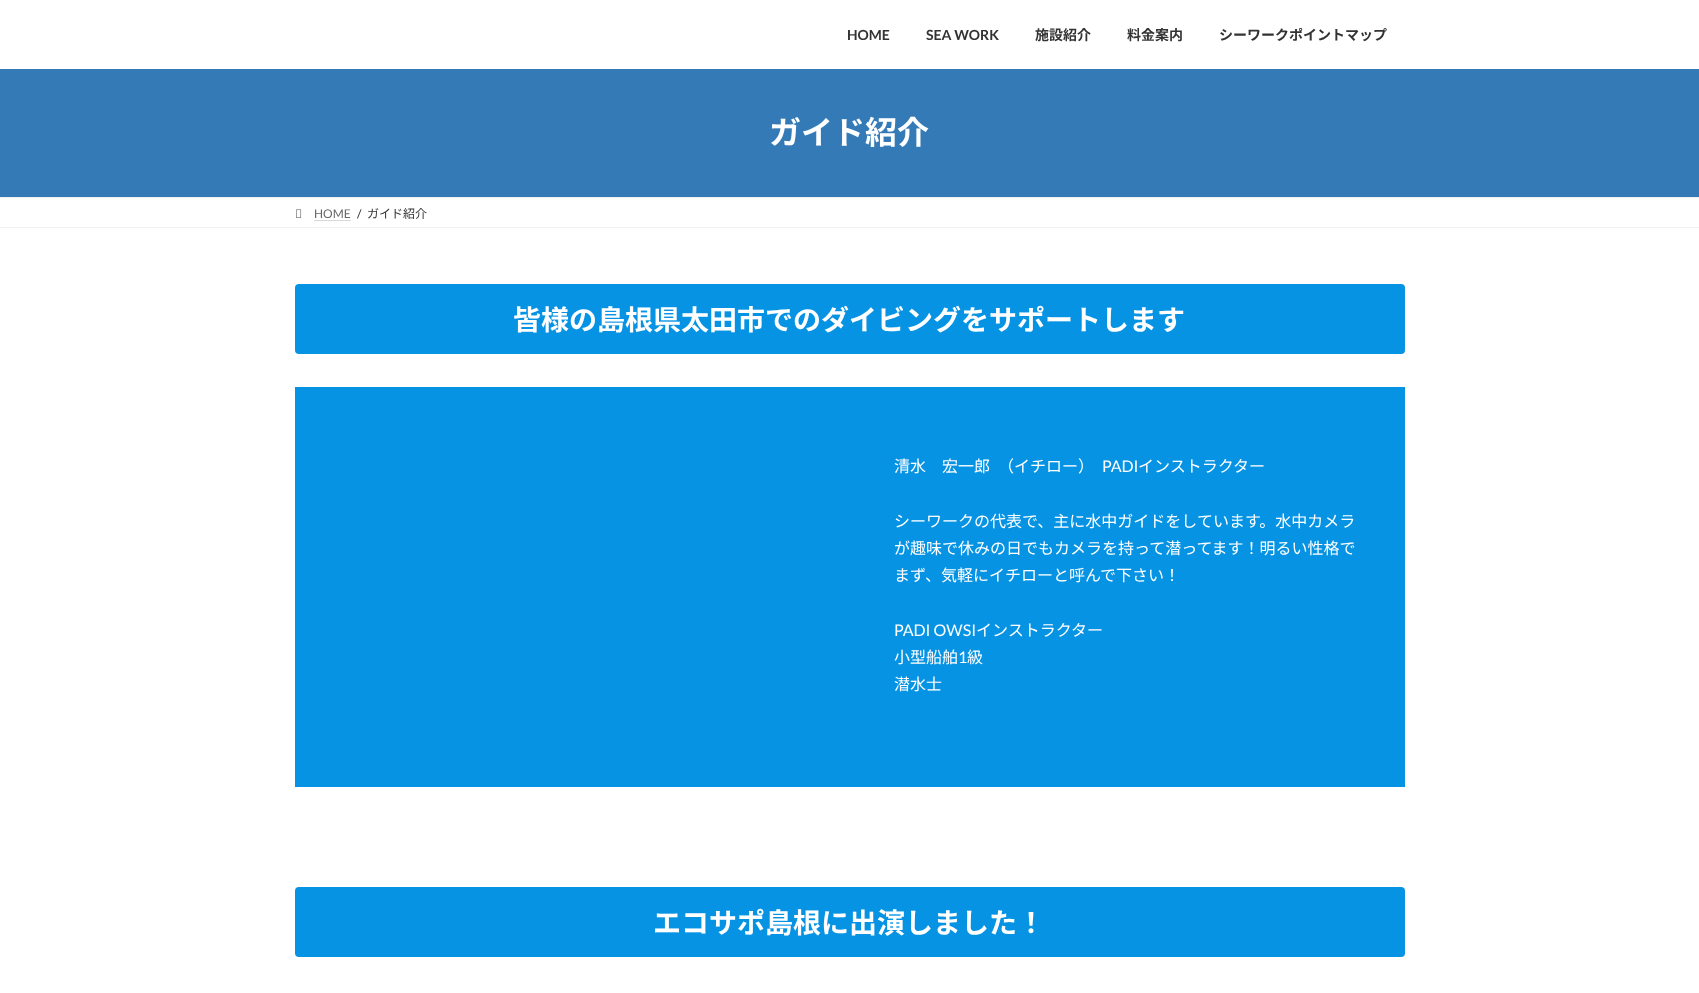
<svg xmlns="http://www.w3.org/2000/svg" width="1699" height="993">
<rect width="100%" height="100%" fill="#fff"/>
<text x="847" y="40" style="font-family:Lato;font-size:14px;font-weight:bold;fill:#333">HOME</text>
<text x="926" y="40" style="font-family:Lato;font-size:14px;font-weight:bold;fill:#333">SEA WORK</text>
<text x="1035" y="40" style="font-family:Noto Sans JP;font-size:14px;font-weight:bold;fill:#333">施設紹介</text>
<text x="1127" y="40" style="font-family:Noto Sans JP;font-size:14px;font-weight:bold;fill:#333">料金案内</text>
<text x="1219" y="40" style="font-family:Noto Sans JP;font-size:14px;font-weight:bold;fill:#333">シーワークポイントマップ</text>
<rect y="69" width="1699" height="128" fill="#337ab7"/>
<text x="769" y="144" style="font-family:Noto Sans JP;font-size:32px;font-weight:bold;fill:#fff">ガイド紹介</text>
<rect y="197" width="1699" height="1" fill="#f0f0f0"/>
<rect y="227" width="1699" height="1" fill="#f0f0f0"/>
<image x="296" y="209" width="6" height="9" href="media/1.png"/>
<text x="314" y="218" style="font-family:Lato;font-size:12px;fill:#666">HOME</text>
<path d="M314.5 220.5h36.5" fill="none" stroke="#b3b3b3" stroke-dasharray="1 1"/>
<text x="357" y="218" style="font-family:Lato;font-size:12px;fill:#333">/</text>
<text x="367" y="218" style="font-family:Noto Sans JP;font-size:12px;fill:#333">ガイド紹介</text>
<rect x="295" y="284" width="1110" height="70" rx="4" fill="#0693e3"/>
<text x="513" y="330" style="font-family:Noto Sans JP;font-size:28px;font-weight:bold;fill:#fff">皆様の島根県太田市でのダイビングをサポートします</text>
<rect x="295" y="387" width="1110" height="400" fill="#0693e3"/>
<text x="894" y="472" style="font-family:Noto Sans JP;font-size:16px;fill:#fff">清水　宏一郎　（イチロー）</text>
<text x="1102" y="472" style="font-family:Lato;font-size:16px;fill:#fff">PADI</text>
<text x="1138" y="472" style="font-family:Noto Sans JP;font-size:16px;fill:#fff">インストラクター</text>
<text x="894" y="527" style="font-family:Noto Sans JP;font-size:16px;fill:#fff">シーワークの代表で、主に水中ガイドをしています。水中カメラ</text>
<text x="894" y="554" style="font-family:Noto Sans JP;font-size:16px;fill:#fff">が趣味で休みの日でもカメラを持って潜ってます！明るい性格で</text>
<text x="894" y="581" style="font-family:Noto Sans JP;font-size:16px;fill:#fff">まず、気軽にイチローと呼んで下さい！</text>
<text x="894" y="636" style="font-family:Lato;font-size:16px;fill:#fff">PADI OWSI</text>
<text x="976" y="636" style="font-family:Noto Sans JP;font-size:16px;fill:#fff">インストラクター</text>
<text x="894" y="663" style="font-family:Noto Sans JP;font-size:16px;fill:#fff">小型船舶</text>
<text x="958" y="663" style="font-family:Lato;font-size:16px;fill:#fff">1</text>
<text x="967" y="663" style="font-family:Noto Sans JP;font-size:16px;fill:#fff">級</text>
<text x="894" y="690" style="font-family:Noto Sans JP;font-size:16px;fill:#fff">潜水士</text>
<rect x="295" y="887" width="1110" height="70" rx="4" fill="#0693e3"/>
<text x="653" y="933" style="font-family:Noto Sans JP;font-size:28px;font-weight:bold;fill:#fff">エコサポ島根に出演しました！</text>
</svg>
